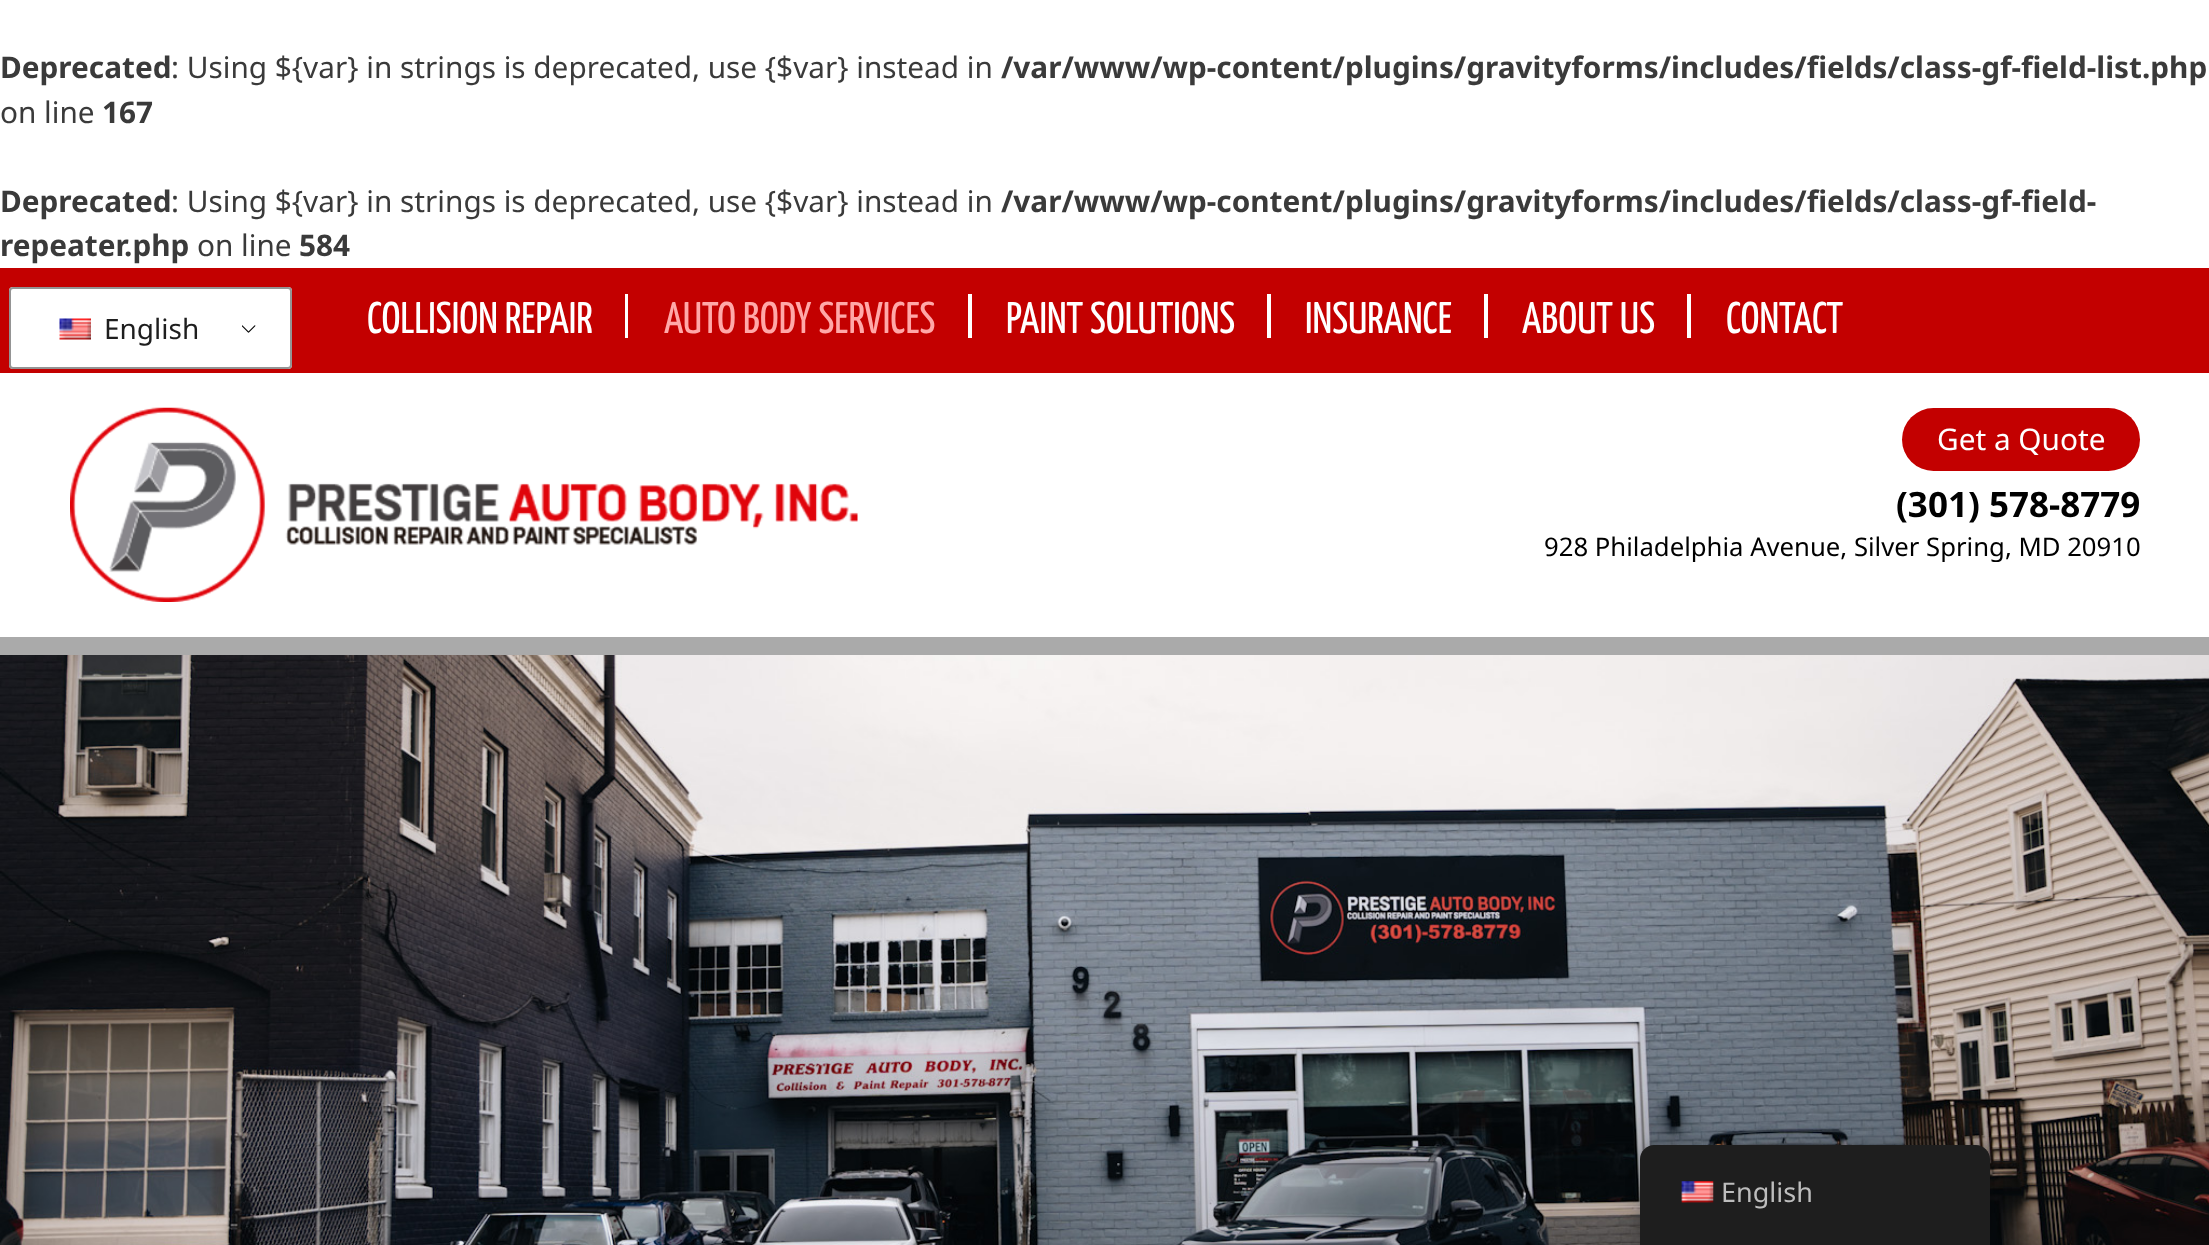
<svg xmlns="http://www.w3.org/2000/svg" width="2209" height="1245">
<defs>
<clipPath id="clip1"><rect x="1545" y="408" width="595" height="154"/></clipPath>
</defs>
<rect width="100%" height="100%" fill="#fff"/>
<text x="0" y="78" style="font-family:Noto Sans;font-size:29.75px;font-weight:bold;fill:#3a3a3a">Deprecated</text>
<text x="171" y="78" style="font-family:Noto Sans;font-size:29.75px;fill:#3a3a3a">: Using ${var} in strings is deprecated, use {$var} instead in</text>
<text x="1001" y="78" style="font-family:Noto Sans;font-size:29.75px;font-weight:bold;fill:#3a3a3a">/var/www/wp-content/plugins/gravityforms/includes/fields/class-gf-field-list.php</text>
<text x="0" y="123" style="font-family:Noto Sans;font-size:29.75px;fill:#3a3a3a">on line</text>
<text x="102" y="123" style="font-family:Noto Sans;font-size:29.75px;font-weight:bold;fill:#3a3a3a">167</text>
<text x="0" y="212" style="font-family:Noto Sans;font-size:29.75px;font-weight:bold;fill:#3a3a3a">Deprecated</text>
<text x="171" y="212" style="font-family:Noto Sans;font-size:29.75px;fill:#3a3a3a">: Using ${var} in strings is deprecated, use {$var} instead in</text>
<text x="1001" y="212" style="font-family:Noto Sans;font-size:29.75px;font-weight:bold;fill:#3a3a3a">/var/www/wp-content/plugins/gravityforms/includes/fields/class-gf-field-</text>
<text x="0" y="256" style="font-family:Noto Sans;font-size:29.75px;font-weight:bold;fill:#3a3a3a">repeater.php</text>
<text x="197" y="256" style="font-family:Noto Sans;font-size:29.75px;fill:#3a3a3a">on line</text>
<text x="299" y="256" style="font-family:Noto Sans;font-size:29.75px;font-weight:bold;fill:#3a3a3a">584</text>
<rect y="268" width="2209" height="105" fill="#c30000"/>
<text x="367" y="333" style="font-family:Yanone Kaffeesatz;font-size:44.25px;fill:#fff">COLLISION REPAIR</text>
<rect x="625" y="294" width="3" height="44" fill="#fff"/>
<text x="664" y="333" style="font-family:Yanone Kaffeesatz;font-size:44.25px;fill:#ffa8a8">AUTO BODY SERVICES</text>
<rect x="968" y="294" width="4" height="44" fill="#fff"/>
<text x="1006" y="333" style="font-family:Yanone Kaffeesatz;font-size:44.25px;fill:#fff">PAINT SOLUTIONS</text>
<rect x="1267" y="294" width="4" height="44" fill="#fff"/>
<text x="1305" y="333" style="font-family:Yanone Kaffeesatz;font-size:44.25px;fill:#fff">INSURANCE</text>
<rect x="1484" y="294" width="4" height="44" fill="#fff"/>
<text x="1522" y="333" style="font-family:Yanone Kaffeesatz;font-size:44.25px;fill:#fff">ABOUT US</text>
<rect x="1687" y="294" width="4" height="44" fill="#fff"/>
<text x="1726" y="333" style="font-family:Yanone Kaffeesatz;font-size:44.25px;fill:#fff">CONTACT</text>
<rect y="637" width="2209" height="18" fill="#aaa"/>
<rect x="9" y="287" width="283" height="82" rx="4" fill="#fff"/>
<image x="242" y="325" width="14" height="8" href="media/1.png"/>
<rect x="10" y="288" width="281" height="80" rx="3" fill="none" stroke="#949494" stroke-width="2"/>
<image x="59" y="318" width="32" height="22" href="media/2.png"/>
<text x="104" y="339" style="font-family:Noto Sans;font-size:28px;fill:#1e1e1e">English</text>
<image x="70" y="407" width="788" height="195" href="media/3.png"/>
<rect x="1902" y="408" width="238" height="63" rx="31.5" fill="#c30000"/>
<text x="1937" y="450" style="font-family:Noto Sans;font-size:29.75px;fill:#fff">Get a Quote</text>
<text x="1896" y="517" style="font-family:Noto Sans;font-size:35px;font-weight:bold;fill:#000">(301) 578-8779</text>
<g clip-path="url(#clip1)">
<text x="1544" y="556" style="font-family:Noto Sans;font-size:25.7px;fill:#000">928 Philadelphia Avenue, Silver Spring, MD 20910</text>
</g>
<image x="0" y="655" width="2209" height="590" href="media/4.png"/>
<rect x="1640" y="1145" width="350" height="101" rx="14" fill="#00000040" filter="blur(7px)"/>
<path d="M1654 1145h322c7.5 0 14 6.5 14 14v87h-350v-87c0-7.5 6.5-14 14-14z" fill="#1e1e1e"/>
<image x="1681" y="1181" width="33" height="22" href="media/5.png"/>
<text x="1721" y="1202" style="font-family:Noto Sans;font-size:27px;fill:#bdbdbd">English</text>
</svg>
